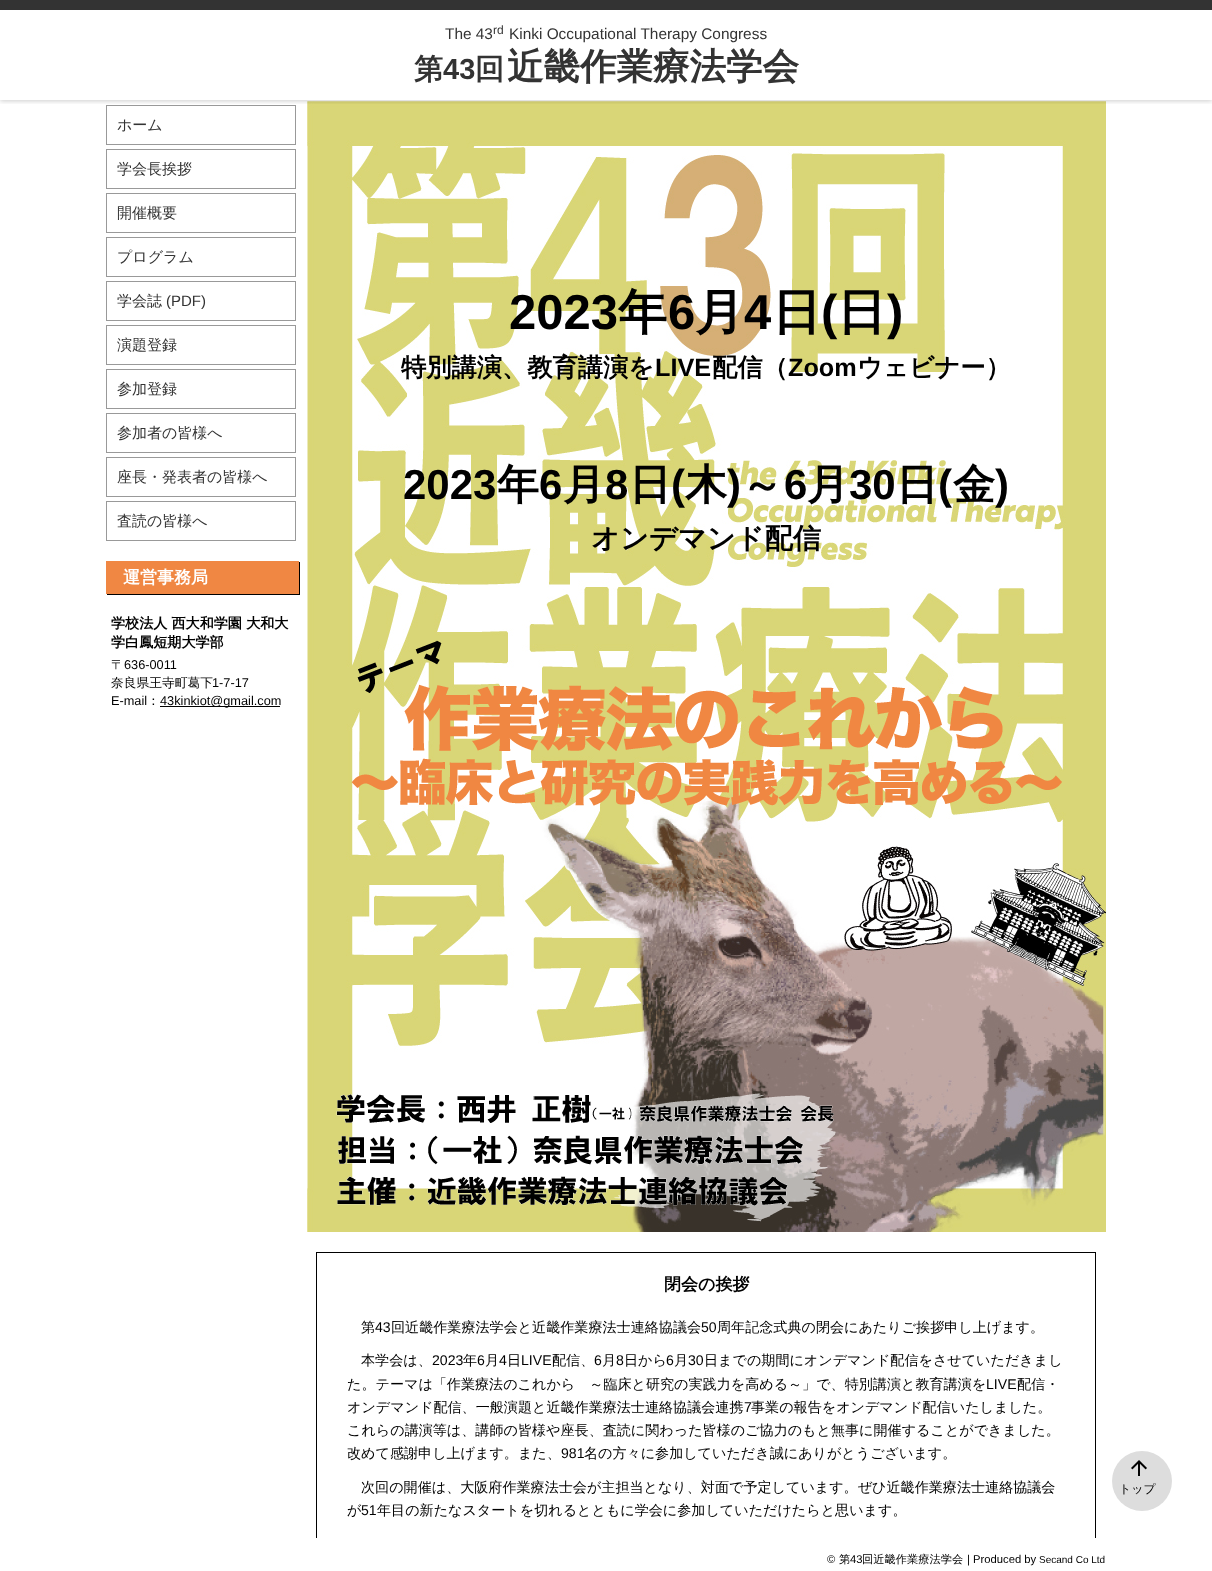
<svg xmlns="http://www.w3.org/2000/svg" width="1212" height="1571">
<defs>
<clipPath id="clip1"><rect x="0" y="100" width="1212" height="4"/></clipPath>
</defs>
<rect width="100%" height="100%" fill="#fff"/>
<rect x="106.5" y="105.5" width="189" height="39" fill="none" stroke="#999"/>
<image x="307" y="101" width="799" height="1131" href="media/1.png"/>
<g clip-path="url(#clip1)">
<rect y="1" width="1212" height="100" fill="#00000033" filter="blur(2.5px)"/>
</g>
<rect width="1212" height="10" fill="#333"/>
<text x="445" y="39" style="font-family:Liberation Sans;font-size:15.4px;fill:#333">The 43</text>
<text x="493" y="34" style="font-family:Liberation Sans;font-size:12px;fill:#333">rd</text>
<text x="509" y="39" style="font-family:Liberation Sans;font-size:15.4px;fill:#333">Kinki Occupational Therapy Congress</text>
<text x="414" y="79" style="font-family:WenQuanYi Zen Hei;font-size:29px;font-weight:bold;fill:#333">第</text>
<text x="443" y="79" style="font-family:Liberation Sans;font-size:29px;font-weight:bold;fill:#333">43</text>
<text x="475" y="79" style="font-family:WenQuanYi Zen Hei;font-size:29px;font-weight:bold;fill:#333">回</text>
<text x="507" y="79" style="font-family:WenQuanYi Zen Hei;font-size:36.5px;font-weight:bold;fill:#333">近畿作業療法学会</text>
<text x="117" y="130" style="font-family:WenQuanYi Zen Hei;font-size:15px;font-weight:500;fill:#333">ホーム</text>
<rect x="106.5" y="149.5" width="189" height="39" fill="none" stroke="#999"/>
<text x="117" y="174" style="font-family:WenQuanYi Zen Hei;font-size:15px;font-weight:500;fill:#333">学会長挨拶</text>
<rect x="106.5" y="193.5" width="189" height="39" fill="none" stroke="#999"/>
<text x="117" y="218" style="font-family:WenQuanYi Zen Hei;font-size:15px;font-weight:500;fill:#333">開催概要</text>
<rect x="106.5" y="237.5" width="189" height="39" fill="none" stroke="#999"/>
<text x="117" y="262" style="font-family:WenQuanYi Zen Hei;font-size:15px;font-weight:500;fill:#333">プログラム</text>
<rect x="106.5" y="281.5" width="189" height="39" fill="none" stroke="#999"/>
<text x="117" y="306" style="font-family:WenQuanYi Zen Hei;font-size:15px;font-weight:500;fill:#333">学会誌</text>
<text x="166" y="306" style="font-family:Liberation Sans;font-size:15px;fill:#333">(PDF)</text>
<rect x="106.5" y="325.5" width="189" height="39" fill="none" stroke="#999"/>
<text x="117" y="350" style="font-family:WenQuanYi Zen Hei;font-size:15px;font-weight:500;fill:#333">演題登録</text>
<rect x="106.5" y="369.5" width="189" height="39" fill="none" stroke="#999"/>
<text x="117" y="394" style="font-family:WenQuanYi Zen Hei;font-size:15px;font-weight:500;fill:#333">参加登録</text>
<rect x="106.5" y="413.5" width="189" height="39" fill="none" stroke="#999"/>
<text x="117" y="438" style="font-family:WenQuanYi Zen Hei;font-size:15px;font-weight:500;fill:#333">参加者の皆様へ</text>
<rect x="106.5" y="457.5" width="189" height="39" fill="none" stroke="#999"/>
<text x="117" y="482" style="font-family:WenQuanYi Zen Hei;font-size:15px;font-weight:500;fill:#333">座長・発表者の皆様へ</text>
<rect x="106.5" y="501.5" width="189" height="39" fill="none" stroke="#999"/>
<text x="117" y="526" style="font-family:WenQuanYi Zen Hei;font-size:15px;font-weight:500;fill:#333">査読の皆様へ</text>
<rect x="107" y="562" width="193" height="33" fill="#000" filter="blur(0.5px)"/>
<rect x="106" y="561" width="193" height="33" fill="#f08743"/>
<text x="123" y="583" style="font-family:WenQuanYi Zen Hei;font-size:17px;font-weight:bold;fill:#fff">運営事務局</text>
<text x="111" y="628" style="font-family:WenQuanYi Zen Hei;font-size:14.08px;font-weight:bold;fill:#000">学校法人 西大和学園 大和大</text>
<text x="111" y="647" style="font-family:WenQuanYi Zen Hei;font-size:14.08px;font-weight:bold;fill:#000">学白鳳短期大学部</text>
<text x="111" y="669" style="font-family:WenQuanYi Zen Hei;font-size:12.75px;font-weight:500;fill:#000">〒</text>
<text x="124" y="669" style="font-family:Liberation Sans;font-size:12.75px;fill:#000">636-0011</text>
<text x="111" y="687" style="font-family:WenQuanYi Zen Hei;font-size:12.75px;font-weight:500;fill:#000">奈良県王寺町葛下</text>
<text x="212" y="687" style="font-family:Liberation Sans;font-size:12.75px;fill:#000">1-7-17</text>
<text x="111" y="705" style="font-family:Liberation Sans;font-size:12.75px;fill:#000">E-mail</text>
<text x="147" y="705" style="font-family:WenQuanYi Zen Hei;font-size:12.75px;font-weight:500;fill:#000">：</text>
<rect x="160" y="706" width="120" height="1" fill="#000"/>
<text x="160" y="705" style="font-family:Liberation Sans;font-size:12.75px;fill:#000">43kinkiot@gmail.com</text>
<text x="509" y="329" style="font-family:Liberation Sans;font-size:49px;font-weight:bold;fill:#000">2023</text>
<text x="618" y="329" style="font-family:WenQuanYi Zen Hei;font-size:49px;font-weight:bold;fill:#000">年</text>
<text x="668" y="329" style="font-family:Liberation Sans;font-size:49px;font-weight:bold;fill:#000">6</text>
<text x="695" y="329" style="font-family:WenQuanYi Zen Hei;font-size:49px;font-weight:bold;fill:#000">月</text>
<text x="744" y="329" style="font-family:Liberation Sans;font-size:49px;font-weight:bold;fill:#000">4</text>
<text x="772" y="329" style="font-family:WenQuanYi Zen Hei;font-size:49px;font-weight:bold;fill:#000">日</text>
<text x="821" y="329" style="font-family:Liberation Sans;font-size:49px;font-weight:bold;fill:#000">(</text>
<text x="837" y="329" style="font-family:WenQuanYi Zen Hei;font-size:49px;font-weight:bold;fill:#000">日</text>
<text x="887" y="329" style="font-family:Liberation Sans;font-size:49px;font-weight:bold;fill:#000">)</text>
<text x="401" y="376" style="font-family:WenQuanYi Zen Hei;font-size:25.25px;font-weight:bold;fill:#000">特別講演、教育講演を</text>
<text x="655" y="376" style="font-family:Liberation Sans;font-size:25.25px;font-weight:bold;fill:#000">LIVE</text>
<text x="712" y="376" style="font-family:WenQuanYi Zen Hei;font-size:25.25px;font-weight:bold;fill:#000">配信（</text>
<text x="788" y="376" style="font-family:Liberation Sans;font-size:25.25px;font-weight:bold;fill:#000">Zoom</text>
<text x="857" y="376" style="font-family:WenQuanYi Zen Hei;font-size:25.25px;font-weight:bold;fill:#000">ウェビナー）</text>
<text x="403" y="499" style="font-family:Liberation Sans;font-size:42px;font-weight:bold;fill:#000">2023</text>
<text x="497" y="499" style="font-family:WenQuanYi Zen Hei;font-size:42px;font-weight:bold;fill:#000">年</text>
<text x="539" y="499" style="font-family:Liberation Sans;font-size:42px;font-weight:bold;fill:#000">6</text>
<text x="563" y="499" style="font-family:WenQuanYi Zen Hei;font-size:42px;font-weight:bold;fill:#000">月</text>
<text x="605" y="499" style="font-family:Liberation Sans;font-size:42px;font-weight:bold;fill:#000">8</text>
<text x="629" y="499" style="font-family:WenQuanYi Zen Hei;font-size:42px;font-weight:bold;fill:#000">日</text>
<text x="671" y="499" style="font-family:Liberation Sans;font-size:42px;font-weight:bold;fill:#000">(</text>
<text x="685" y="499" style="font-family:WenQuanYi Zen Hei;font-size:42px;font-weight:bold;fill:#000">木</text>
<text x="727" y="499" style="font-family:Liberation Sans;font-size:42px;font-weight:bold;fill:#000">)</text>
<text x="741" y="499" style="font-family:WenQuanYi Zen Hei;font-size:42px;font-weight:bold;fill:#000">～</text>
<text x="784" y="499" style="font-family:Liberation Sans;font-size:42px;font-weight:bold;fill:#000">6</text>
<text x="807" y="499" style="font-family:WenQuanYi Zen Hei;font-size:42px;font-weight:bold;fill:#000">月</text>
<text x="849" y="499" style="font-family:Liberation Sans;font-size:42px;font-weight:bold;fill:#000">30</text>
<text x="896" y="499" style="font-family:WenQuanYi Zen Hei;font-size:42px;font-weight:bold;fill:#000">日</text>
<text x="938" y="499" style="font-family:Liberation Sans;font-size:42px;font-weight:bold;fill:#000">(</text>
<text x="953" y="499" style="font-family:WenQuanYi Zen Hei;font-size:42px;font-weight:bold;fill:#000">金</text>
<text x="995" y="499" style="font-family:Liberation Sans;font-size:42px;font-weight:bold;fill:#000">)</text>
<text x="591" y="548" style="font-family:WenQuanYi Zen Hei;font-size:28.25px;font-weight:bold;fill:#000">オンデマンド配信</text>
<image x="351" y="640" width="711" height="166" href="media/2.png"/>
<image x="336" y="1093" width="500" height="129" href="media/3.png"/>
<rect x="316.5" y="1252.5" width="779" height="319" fill="none" stroke="#000"/>
<text x="664" y="1290" style="font-family:WenQuanYi Zen Hei;font-size:17px;font-weight:bold;fill:#000">閉会の挨拶</text>
<text x="361" y="1332" style="font-family:WenQuanYi Zen Hei;font-size:14.08px;font-weight:500;fill:#000">第</text>
<text x="375" y="1332" style="font-family:Liberation Sans;font-size:14.08px;fill:#000">43</text>
<text x="391" y="1332" style="font-family:WenQuanYi Zen Hei;font-size:14.08px;font-weight:500;fill:#000">回近畿作業療法学会と近畿作業療法士連絡協議会</text>
<text x="701" y="1332" style="font-family:Liberation Sans;font-size:14.08px;fill:#000">50</text>
<text x="717" y="1332" style="font-family:WenQuanYi Zen Hei;font-size:14.08px;font-weight:500;fill:#000">周年記念式典の閉会にあたりご挨拶申し上げます。</text>
<text x="361" y="1365" style="font-family:WenQuanYi Zen Hei;font-size:14.08px;font-weight:500;fill:#000">本学会は、</text>
<text x="432" y="1365" style="font-family:Liberation Sans;font-size:14.08px;fill:#000">2023</text>
<text x="463" y="1365" style="font-family:WenQuanYi Zen Hei;font-size:14.08px;font-weight:500;fill:#000">年</text>
<text x="477" y="1365" style="font-family:Liberation Sans;font-size:14.08px;fill:#000">6</text>
<text x="485" y="1365" style="font-family:WenQuanYi Zen Hei;font-size:14.08px;font-weight:500;fill:#000">月</text>
<text x="499" y="1365" style="font-family:Liberation Sans;font-size:14.08px;fill:#000">4</text>
<text x="507" y="1365" style="font-family:WenQuanYi Zen Hei;font-size:14.08px;font-weight:500;fill:#000">日</text>
<text x="521" y="1365" style="font-family:Liberation Sans;font-size:14.08px;fill:#000">LIVE</text>
<text x="552" y="1365" style="font-family:WenQuanYi Zen Hei;font-size:14.08px;font-weight:500;fill:#000">配信、</text>
<text x="594" y="1365" style="font-family:Liberation Sans;font-size:14.08px;fill:#000">6</text>
<text x="602" y="1365" style="font-family:WenQuanYi Zen Hei;font-size:14.08px;font-weight:500;fill:#000">月</text>
<text x="616" y="1365" style="font-family:Liberation Sans;font-size:14.08px;fill:#000">8</text>
<text x="624" y="1365" style="font-family:WenQuanYi Zen Hei;font-size:14.08px;font-weight:500;fill:#000">日から</text>
<text x="666" y="1365" style="font-family:Liberation Sans;font-size:14.08px;fill:#000">6</text>
<text x="674" y="1365" style="font-family:WenQuanYi Zen Hei;font-size:14.08px;font-weight:500;fill:#000">月</text>
<text x="688" y="1365" style="font-family:Liberation Sans;font-size:14.08px;fill:#000">30</text>
<text x="704" y="1365" style="font-family:WenQuanYi Zen Hei;font-size:14.08px;font-weight:500;fill:#000">日までの期間にオンデマンド配信をさせていただきまし</text>
<text x="347" y="1389" style="font-family:WenQuanYi Zen Hei;font-size:14.08px;font-weight:500;fill:#000">た。テーマは「作業療法のこれから　～臨床と研究の実践力を高める～」で、特別講演と教育講演を</text>
<text x="986" y="1389" style="font-family:Liberation Sans;font-size:14.08px;fill:#000">LIVE</text>
<text x="1017" y="1389" style="font-family:WenQuanYi Zen Hei;font-size:14.08px;font-weight:500;fill:#000">配信・</text>
<text x="347" y="1412" style="font-family:WenQuanYi Zen Hei;font-size:14.08px;font-weight:500;fill:#000">オンデマンド配信、一般演題と近畿作業療法士連絡協議会連携</text>
<text x="744" y="1412" style="font-family:Liberation Sans;font-size:14.08px;fill:#000">7</text>
<text x="751" y="1412" style="font-family:WenQuanYi Zen Hei;font-size:14.08px;font-weight:500;fill:#000">事業の報告をオンデマンド配信いたしました。</text>
<text x="347" y="1435" style="font-family:WenQuanYi Zen Hei;font-size:14.08px;font-weight:500;fill:#000">これらの講演等は、講師の皆様や座長、査読に関わった皆様のご協力のもと無事に開催することができました。</text>
<text x="347" y="1458" style="font-family:WenQuanYi Zen Hei;font-size:14.08px;font-weight:500;fill:#000">改めて感謝申し上げます。また、</text>
<text x="561" y="1458" style="font-family:Liberation Sans;font-size:14.08px;fill:#000">981</text>
<text x="584" y="1458" style="font-family:WenQuanYi Zen Hei;font-size:14.08px;font-weight:500;fill:#000">名の方々に参加していただき誠にありがとうございます。</text>
<text x="361" y="1492" style="font-family:WenQuanYi Zen Hei;font-size:14.08px;font-weight:500;fill:#000">次回の開催は、大阪府作業療法士会が主担当となり、対面で予定しています。ぜひ近畿作業療法士連絡協議会</text>
<text x="347" y="1515" style="font-family:WenQuanYi Zen Hei;font-size:14.08px;font-weight:500;fill:#000">が</text>
<text x="361" y="1515" style="font-family:Liberation Sans;font-size:14.08px;fill:#000">51</text>
<text x="377" y="1515" style="font-family:WenQuanYi Zen Hei;font-size:14.08px;font-weight:500;fill:#000">年目の新たなスタートを切れるとともに学会に参加していただけたらと思います。</text>
<circle cx="1142" cy="1481" r="30" fill="#ddd"/>
<image x="1131" y="1460" width="16" height="16" href="media/4.png"/>
<text x="1119" y="1493" style="font-family:WenQuanYi Zen Hei;font-size:12px;font-weight:500;fill:#000">トップ</text>
<rect x="316" y="1538" width="780" height="33" fill="#fff"/>
<text x="827" y="1563" style="font-family:Liberation Sans;font-size:11.25px;fill:#000">©</text>
<text x="839" y="1563" style="font-family:WenQuanYi Zen Hei;font-size:11.25px;font-weight:500;fill:#000">第</text>
<text x="850" y="1563" style="font-family:Liberation Sans;font-size:11.25px;fill:#000">43</text>
<text x="862" y="1563" style="font-family:WenQuanYi Zen Hei;font-size:11.25px;font-weight:500;fill:#000">回近畿作業療法学会</text>
<text x="967" y="1563" style="font-family:Liberation Sans;font-size:11.25px;fill:#000">| Produced by</text>
<text x="1039" y="1563" style="font-family:Liberation Sans;font-size:10px;fill:#000">Secand Co Ltd</text>
</svg>
